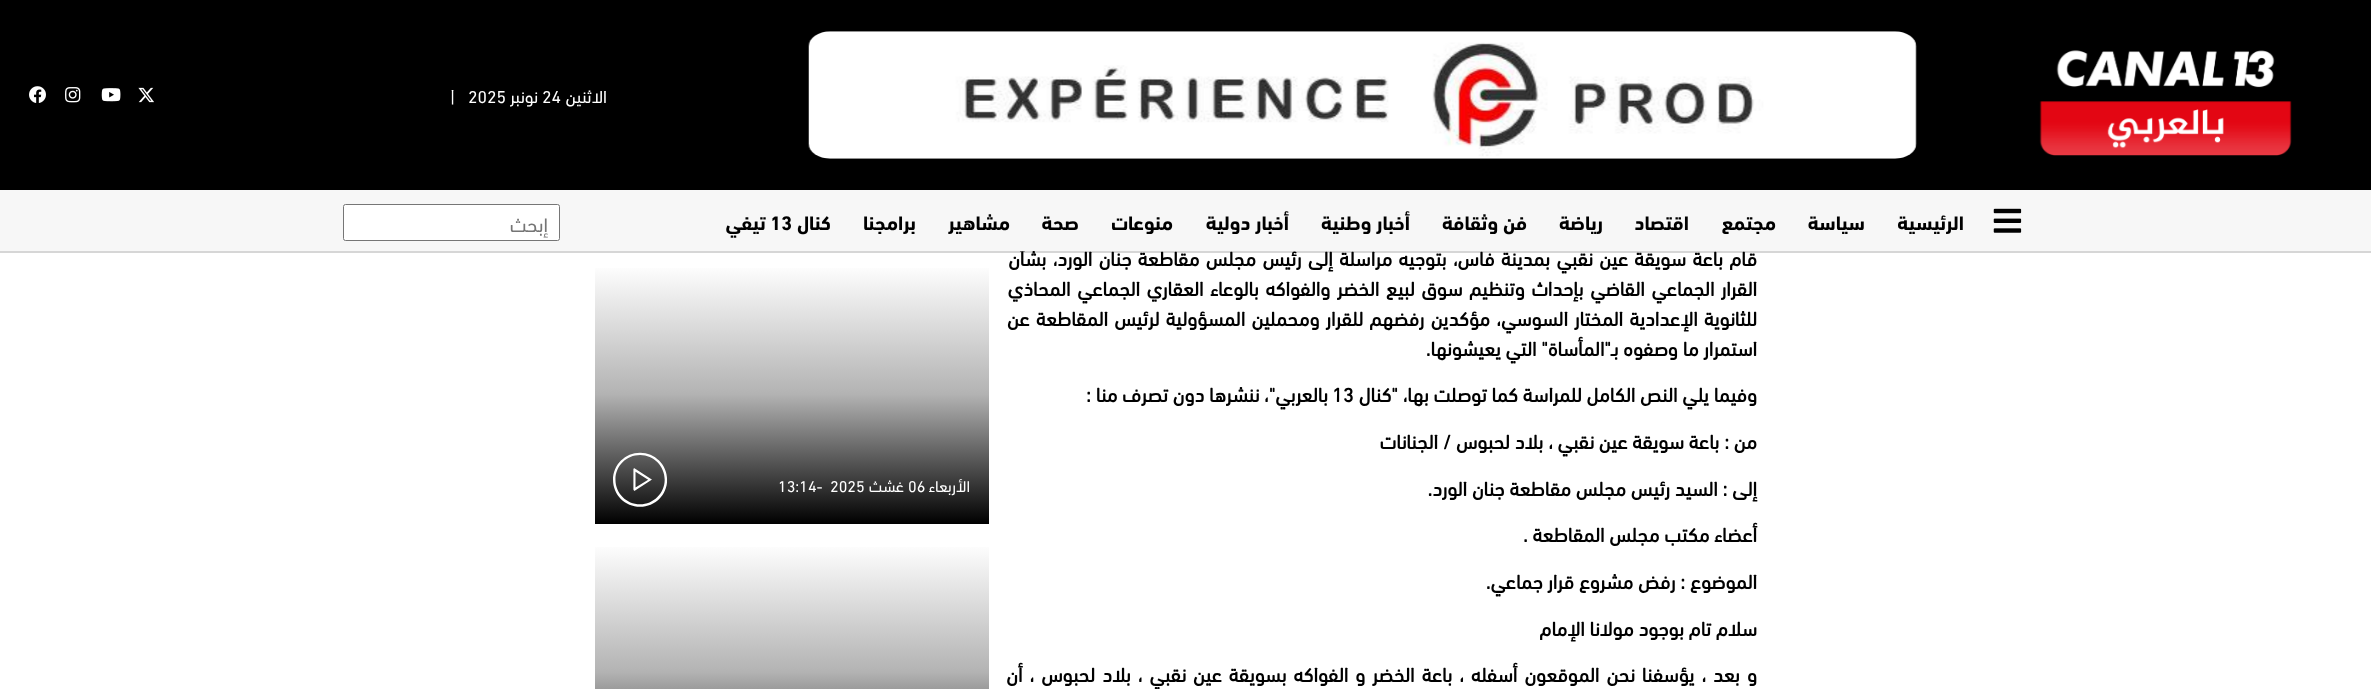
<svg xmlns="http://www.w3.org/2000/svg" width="2371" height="689">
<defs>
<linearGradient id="g1" gradientUnits="userSpaceOnUse" x1="792" y1="524" x2="792" y2="264"><stop offset="0" stop-color="#000"/><stop offset="0.5" stop-color="#b3b3b3"/><stop offset="1" stop-color="#fff"/></linearGradient>
<linearGradient id="g2" gradientUnits="userSpaceOnUse" x1="792" y1="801" x2="792" y2="543"><stop offset="0" stop-color="#000"/><stop offset="0.5" stop-color="#b3b3b3"/><stop offset="1" stop-color="#fff"/></linearGradient>
</defs>
<rect width="100%" height="100%" fill="#fff"/>
<rect width="2371" height="190" fill="#000"/>
<image x="2039" y="50" width="253" height="106" href="media/1.png"/>
<image x="808" y="31" width="1109" height="128" href="media/2.png"/>
<text x="607" y="103" style="font-family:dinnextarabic;font-size:17.5px;direction:rtl;fill:#fff">الاثنين</text>
<text x="542" y="103" style="font-family:dinnextarabic;font-size:17.5px;fill:#fff">24</text>
<text x="538" y="103" style="font-family:dinnextarabic;font-size:17.5px;direction:rtl;fill:#fff">نونبر</text>
<text x="468" y="103" style="font-family:dinnextarabic;font-size:17.5px;fill:#fff">2025</text>
<text x="450" y="103" style="font-family:dinnextarabic;font-size:17.5px;fill:#fff">|</text>
<image x="138" y="87" width="16" height="16" href="media/3.png"/>
<image x="101" y="88" width="20" height="14" href="media/4.png"/>
<image x="65" y="87" width="16" height="16" href="media/5.png"/>
<image x="29" y="86" width="17" height="17" href="media/6.png"/>
<rect y="191" width="2371" height="62" fill="#d6d6d6" filter="blur(0.5px)"/>
<text x="1757" y="266" word-spacing="1.6" style="font-family:dinnextarabic;font-size:20px;font-weight:bold;direction:rtl;fill:#000">قام باعة سويقة عين نقبي بمدينة فاس، بتوجيه مراسلة إلى رئيس مجلس مقاطعة جنان الورد، بشأن</text>
<rect y="190" width="2371" height="61" fill="#f7f7f7"/>
<image x="1993" y="208" width="29" height="25" href="media/7.png"/>
<text x="1964" y="230" style="font-family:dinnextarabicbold;font-size:20px;font-weight:bold;direction:rtl;fill:#000">الرئيسية</text>
<text x="1865" y="230" style="font-family:dinnextarabicbold;font-size:20px;font-weight:bold;direction:rtl;fill:#000">سياسة</text>
<text x="1776" y="230" style="font-family:dinnextarabicbold;font-size:20px;font-weight:bold;direction:rtl;fill:#000">مجتمع</text>
<text x="1689" y="230" style="font-family:dinnextarabicbold;font-size:20px;font-weight:bold;direction:rtl;fill:#000">اقتصاد</text>
<text x="1603" y="230" style="font-family:dinnextarabicbold;font-size:20px;font-weight:bold;direction:rtl;fill:#000">رياضة</text>
<text x="1527" y="230" style="font-family:dinnextarabicbold;font-size:20px;font-weight:bold;direction:rtl;fill:#000">فن وثقافة</text>
<text x="1410" y="230" style="font-family:dinnextarabicbold;font-size:20px;font-weight:bold;direction:rtl;fill:#000">أخبار وطنية</text>
<text x="1289" y="230" style="font-family:dinnextarabicbold;font-size:20px;font-weight:bold;direction:rtl;fill:#000">أخبار دولية</text>
<text x="1173" y="230" style="font-family:dinnextarabicbold;font-size:20px;font-weight:bold;direction:rtl;fill:#000">منوعات</text>
<text x="1079" y="230" style="font-family:dinnextarabicbold;font-size:20px;font-weight:bold;direction:rtl;fill:#000">صحة</text>
<text x="1010" y="230" style="font-family:dinnextarabicbold;font-size:20px;font-weight:bold;direction:rtl;fill:#000">مشاهير</text>
<text x="916" y="230" style="font-family:dinnextarabicbold;font-size:20px;font-weight:bold;direction:rtl;fill:#000">برامجنا</text>
<text x="831" y="230" style="font-family:dinnextarabicbold;font-size:20px;font-weight:bold;direction:rtl;fill:#000">كنال</text>
<text x="770" y="230" style="font-family:dinnextarabicbold;font-size:20px;font-weight:bold;fill:#000">13</text>
<text x="766" y="230" style="font-family:dinnextarabicbold;font-size:20px;font-weight:bold;direction:rtl;fill:#000">تيفي</text>
<rect x="343.5" y="204.5" width="216" height="36" rx="2" fill="#fff" stroke="#767676"/>
<text x="548" y="232" style="font-family:dinnextarabic;font-size:20px;direction:rtl;fill:#757575">إبحث</text>
<text x="1757" y="296" word-spacing="1.9" style="font-family:dinnextarabic;font-size:20px;font-weight:bold;direction:rtl;fill:#000">القرار الجماعي القاضي بإحداث وتنظيم سوق لبيع الخضر والفواكه بالوعاء العقاري الجماعي المحاذي</text>
<text x="1757" y="326" word-spacing="1.5" style="font-family:dinnextarabic;font-size:20px;font-weight:bold;direction:rtl;fill:#000">للثانوية الإعدادية المختار السوسي، مؤكدين رفضهم للقرار ومحملين المسؤولية لرئيس المقاطعة عن</text>
<text x="1757" y="356" style="font-family:dinnextarabic;font-size:20px;font-weight:bold;direction:rtl;fill:#000">استمرار ما وصفوه بـ"المأساة" التي يعيشونها.</text>
<text x="1757" y="402" style="font-family:dinnextarabic;font-size:20px;font-weight:bold;direction:rtl;fill:#000">وفيما يلي النص الكامل للمراسة كما توصلت بها، "كنال</text>
<text x="1332" y="402" style="font-family:dinnextarabic;font-size:20px;font-weight:bold;fill:#000">13</text>
<text x="1328" y="402" style="font-family:dinnextarabic;font-size:20px;font-weight:bold;direction:rtl;fill:#000">بالعربي"، ننشرها دون تصرف منا :</text>
<text x="1757" y="449" style="font-family:dinnextarabic;font-size:20px;font-weight:bold;direction:rtl;fill:#000">من : باعة سويقة عين نقبي ، بلاد لحبوس / الجنانات</text>
<text x="1757" y="496" style="font-family:dinnextarabic;font-size:20px;font-weight:bold;direction:rtl;fill:#000">إلى : السيد رئيس مجلس مقاطعة جنان الورد.</text>
<text x="1757" y="542" style="font-family:dinnextarabic;font-size:20px;font-weight:bold;direction:rtl;fill:#000">أعضاء مكتب مجلس المقاطعة .</text>
<text x="1757" y="589" style="font-family:dinnextarabic;font-size:20px;font-weight:bold;direction:rtl;fill:#000">الموضوع : رفض مشروع قرار جماعي.</text>
<text x="1757" y="636" style="font-family:dinnextarabic;font-size:20px;font-weight:bold;direction:rtl;fill:#000">سلام تام بوجود مولانا الإمام</text>
<text x="1757" y="682" word-spacing="2.25" style="font-family:dinnextarabic;font-size:20px;font-weight:bold;direction:rtl;fill:#000">و بعد ، يؤسفنا نحن الموقعون أسفله ، باعة الخضر و الفواكه بسويقة عين نقبي ، بلاد لحبوس ، أن</text>
<rect x="595" y="268" width="394" height="256" fill="url(#g1)"/>
<text x="970" y="492" style="font-family:dinnextarabic;font-size:16px;direction:rtl;fill:#fff">الأربعاء</text>
<text x="908" y="492" style="font-family:dinnextarabic;font-size:16px;fill:#fff">06</text>
<text x="904" y="492" style="font-family:dinnextarabic;font-size:16px;direction:rtl;fill:#fff">غشث</text>
<text x="830" y="492" style="font-family:dinnextarabic;font-size:16px;fill:#fff">2025</text>
<text x="778" y="492" style="font-family:dinnextarabic;font-size:16px;fill:#fff">13:14-</text>
<image x="613" y="452" width="55" height="55" href="media/8.png"/>
<rect x="595" y="547" width="394" height="142" fill="url(#g2)"/>
</svg>
